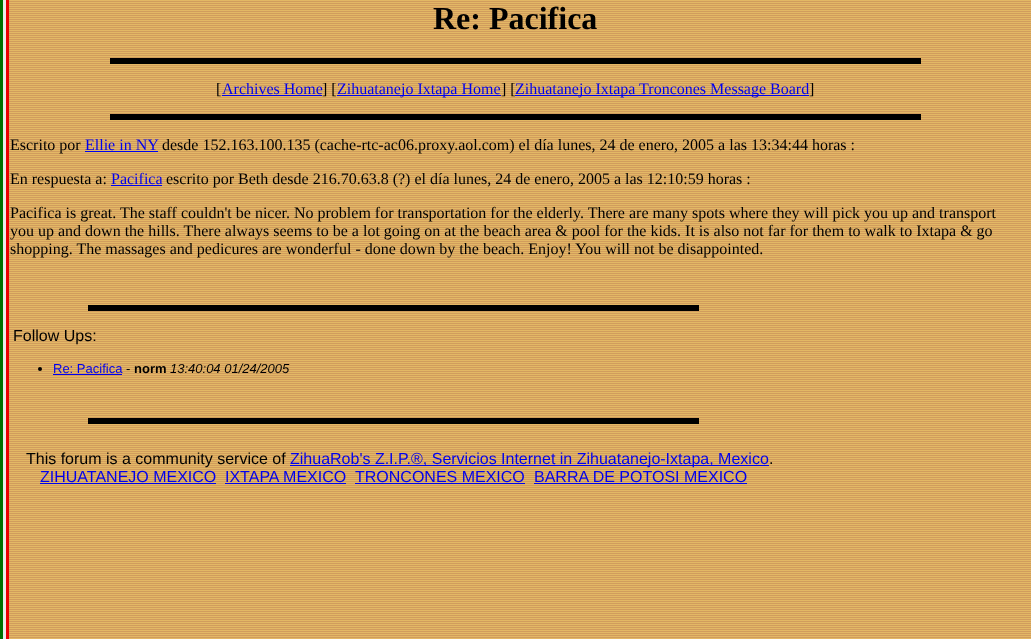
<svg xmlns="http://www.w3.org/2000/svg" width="1031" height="639">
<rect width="100%" height="100%" fill="#fff"/>
<image x="0" y="0" width="1031" height="639" href="media/1.png"/>
<text x="433" y="29" style="font-family:Liberation Serif;font-size:32px;font-weight:bold;fill:#000">Re: Pacifica</text>
<rect x="110" y="58" width="811" height="6" fill="#000"/>
<text x="216" y="94" style="font-family:Liberation Serif;font-size:16px;fill:#000">[</text>
<text x="222" y="94" style="font-family:Liberation Serif;font-size:16px;fill:#00e">Archives Home</text>
<rect x="222" y="95" width="100" height="1" fill="#00e"/>
<text x="322" y="94" style="font-family:Liberation Serif;font-size:16px;fill:#000">] [</text>
<rect x="337" y="95" width="164" height="1" fill="#00e"/>
<text x="337" y="94" style="font-family:Liberation Serif;font-size:16px;fill:#00e">Zihuatanejo Ixtapa Home</text>
<text x="501" y="94" style="font-family:Liberation Serif;font-size:16px;fill:#000">] [</text>
<rect x="515" y="95" width="294" height="1" fill="#00e"/>
<text x="515" y="94" style="font-family:Liberation Serif;font-size:16px;fill:#00e">Zihuatanejo Ixtapa Troncones Message Board</text>
<text x="809" y="94" style="font-family:Liberation Serif;font-size:16px;fill:#000">]</text>
<rect x="110" y="114" width="811" height="6" fill="#000"/>
<text x="10" y="150" style="font-family:Liberation Serif;font-size:16px;fill:#000">Escrito por</text>
<rect x="85" y="151" width="73" height="1" fill="#00e"/>
<text x="85" y="150" style="font-family:Liberation Serif;font-size:16px;fill:#00e">Ellie in NY</text>
<text x="162" y="150" style="font-family:Liberation Serif;font-size:16px;fill:#000">desde 152.163.100.135 (cache-rtc-ac06.proxy.aol.com) el día lunes, 24 de enero, 2005 a las 13:34:44 horas :</text>
<text x="10" y="184" style="font-family:Liberation Serif;font-size:16px;fill:#000">En respuesta a:</text>
<text x="111" y="184" style="font-family:Liberation Serif;font-size:16px;fill:#00e">Pacifica</text>
<rect x="111" y="185" width="51" height="1" fill="#00e"/>
<text x="166" y="184" style="font-family:Liberation Serif;font-size:16px;fill:#000">escrito por Beth desde 216.70.63.8 (?) el día lunes, 24 de enero, 2005 a las 12:10:59 horas :</text>
<text x="10" y="218" style="font-family:Liberation Serif;font-size:16px;fill:#000">Pacifica is great. The staff couldn't be nicer. No problem for transportation for the elderly. There are many spots where they will pick you up and transport</text>
<text x="10" y="236" style="font-family:Liberation Serif;font-size:16px;fill:#000">you up and down the hills. There always seems to be a lot going on at the beach area &amp; pool for the kids. It is also not far for them to walk to Ixtapa &amp; go</text>
<text x="10" y="254" style="font-family:Liberation Serif;font-size:16px;fill:#000">shopping. The massages and pedicures are wonderful - done down by the beach. Enjoy! You will not be disappointed.</text>
<rect x="88" y="305" width="611" height="6" fill="#000"/>
<text x="13" y="341" style="font-family:Liberation Sans;font-size:16px;fill:#000">Follow Ups:</text>
<circle cx="40" cy="369" r="2" fill="#000"/>
<text x="53" y="373" style="font-family:Liberation Sans;font-size:13px;fill:#00e">Re: Pacifica</text>
<rect x="53" y="374" width="69" height="1" fill="#00e"/>
<text x="126" y="373" style="font-family:Liberation Sans;font-size:13px;fill:#000">-</text>
<text x="134" y="373" style="font-family:Liberation Sans;font-size:13px;font-weight:bold;fill:#000">norm</text>
<text x="170" y="373" style="font-family:Liberation Sans;font-size:13px;font-style:italic;fill:#000">13:40:04 01/24/2005</text>
<rect x="88" y="418" width="611" height="6" fill="#000"/>
<text x="26" y="464" style="font-family:Liberation Sans;font-size:16px;fill:#000">This forum is a community service of</text>
<rect x="290" y="465" width="479" height="1" fill="#00e"/>
<text x="290" y="464" style="font-family:Liberation Sans;font-size:16px;fill:#00e">ZihuaRob's Z.I.P.®, Servicios Internet in Zihuatanejo-Ixtapa, Mexico</text>
<text x="769" y="464" style="font-family:Liberation Sans;font-size:16px;fill:#000">.</text>
<text x="40" y="482" style="font-family:Liberation Sans;font-size:16px;fill:#00e">ZIHUATANEJO MEXICO</text>
<rect x="40" y="483" width="176" height="1" fill="#00e"/>
<text x="225" y="482" style="font-family:Liberation Sans;font-size:16px;fill:#00e">IXTAPA MEXICO</text>
<rect x="225" y="483" width="121" height="1" fill="#00e"/>
<text x="355" y="482" style="font-family:Liberation Sans;font-size:16px;fill:#00e">TRONCONES MEXICO</text>
<rect x="355" y="483" width="170" height="1" fill="#00e"/>
<text x="534" y="482" style="font-family:Liberation Sans;font-size:16px;fill:#00e">BARRA DE POTOSI MEXICO</text>
<rect x="534" y="483" width="213" height="1" fill="#00e"/>
</svg>
